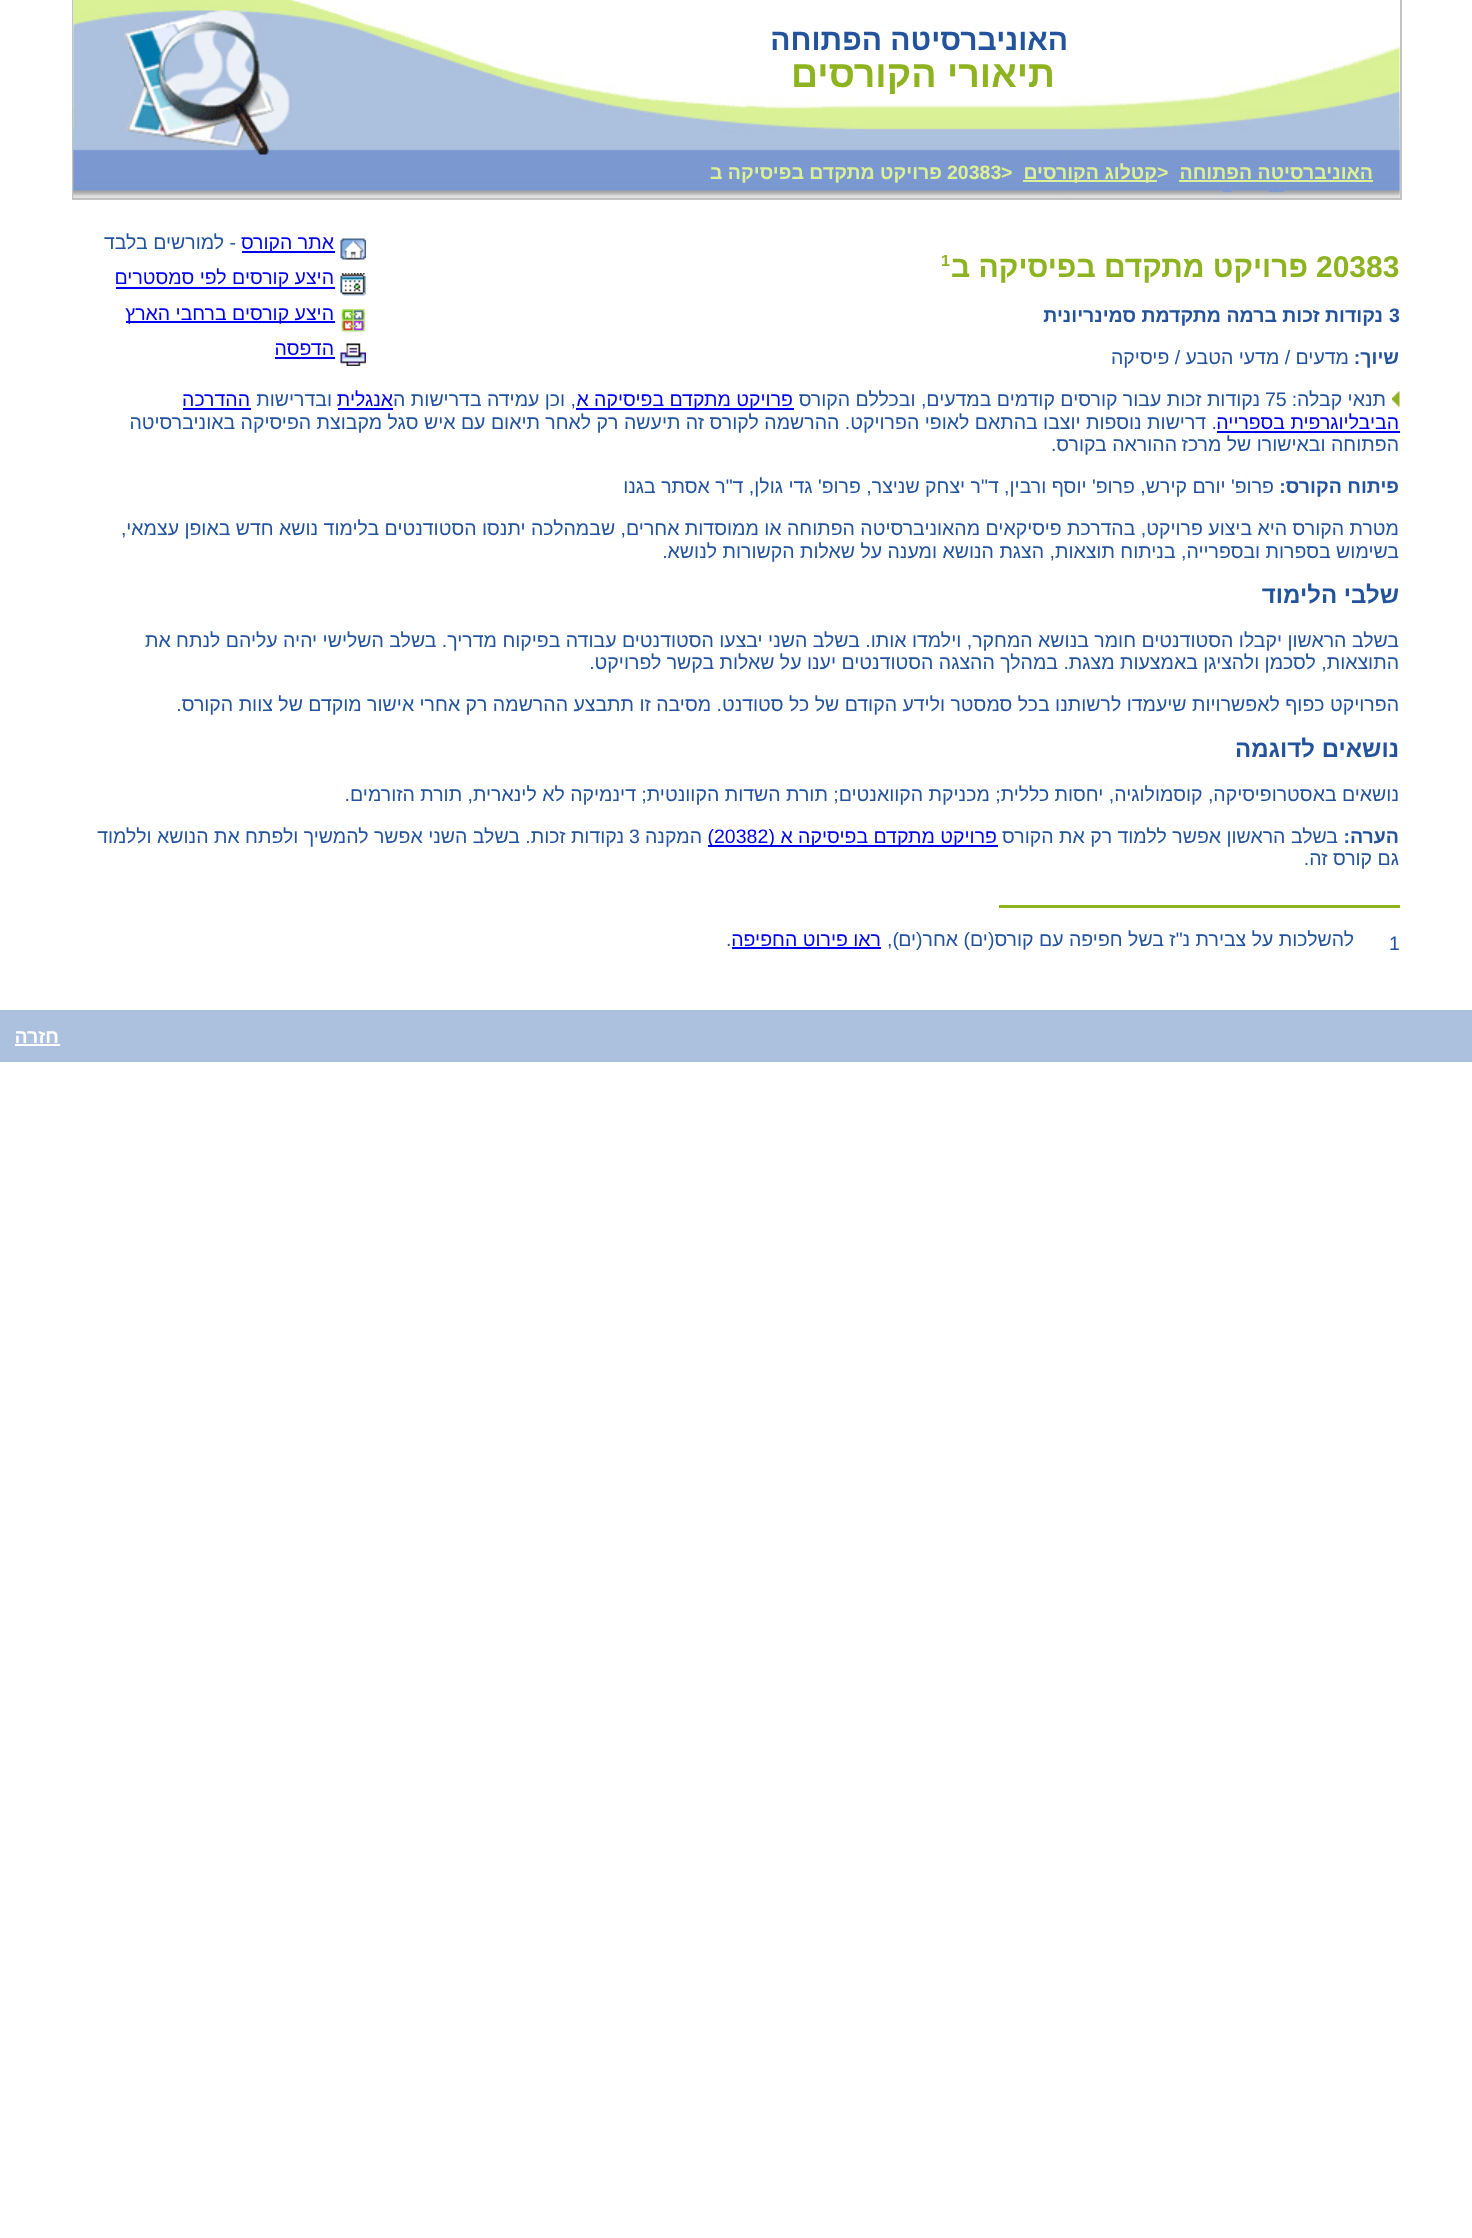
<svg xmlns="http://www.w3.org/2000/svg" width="1472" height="2238">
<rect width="100%" height="100%" fill="#fff"/>
<rect x="1400" width="2" height="200" fill="#c2c2c2"/>
<rect x="72" y="198" width="1329" height="2" fill="#c2c2c2"/>
<rect x="72" width="2" height="200" fill="#c2c2c2"/>
<image x="73" y="0" width="1327" height="198" href="media/1.png"/>
<image x="73" y="0" width="793" height="198" href="media/2.png"/>
<image x="1061" y="45" width="339" height="153" href="media/3.png"/>
<text x="1068" y="50" style="font-family:Liberation Sans;font-size:30px;font-weight:bold;direction:rtl;fill:#23539c">האוניברסיטה הפתוחה</text>
<text x="1055" y="87" style="font-family:Liberation Sans;font-size:37.5px;font-weight:bold;direction:rtl;fill:#8eb321">תיאורי הקורסים</text>
<text x="1373" y="179" style="font-family:Liberation Sans;font-size:19.5px;font-weight:bold;direction:rtl;fill:#dbf197">האוניברסיטה הפתוחה</text>
<rect x="1179" y="180" width="194" height="2" fill="#dbf197"/>
<text x="1157" y="179" style="font-family:Liberation Sans;font-size:19.5px;font-weight:bold;fill:#dbf197">&gt;</text>
<rect x="1023" y="180" width="134" height="2" fill="#dbf197"/>
<text x="1157" y="179" style="font-family:Liberation Sans;font-size:19.5px;font-weight:bold;direction:rtl;fill:#dbf197">קטלוג הקורסים</text>
<text x="1001" y="179" style="font-family:Liberation Sans;font-size:19.5px;font-weight:bold;fill:#dbf197">&gt;</text>
<text x="947" y="179" style="font-family:Liberation Sans;font-size:19.5px;font-weight:bold;fill:#dbf197">20383</text>
<text x="942" y="179" style="font-family:Liberation Sans;font-size:19.5px;font-weight:bold;direction:rtl;fill:#dbf197">פרויקט מתקדם בפיסיקה ב</text>
<image x="340" y="238" width="26" height="22" href="media/4.png"/>
<rect x="242" y="251" width="93" height="2" fill="#00e"/>
<text x="334" y="249" style="font-family:Liberation Sans;font-size:19.5px;direction:rtl;fill:#00e">אתר הקורס</text>
<text x="236" y="249" style="font-family:Liberation Sans;font-size:19.5px;direction:rtl;fill:#23539c">- למורשים בלבד</text>
<image x="340" y="273" width="26" height="23" href="media/5.png"/>
<rect x="116" y="287" width="219" height="2" fill="#00e"/>
<text x="334" y="284" style="font-family:Liberation Sans;font-size:19.5px;direction:rtl;fill:#00e">היצע קורסים לפי סמסטרים</text>
<image x="340" y="309" width="26" height="23" href="media/6.png"/>
<rect x="126" y="321" width="209" height="2" fill="#00e"/>
<text x="334" y="320" style="font-family:Liberation Sans;font-size:19.5px;direction:rtl;fill:#00e">היצע קורסים ברחבי הארץ</text>
<image x="340" y="343" width="26" height="23" href="media/7.png"/>
<text x="334" y="355" style="font-family:Liberation Sans;font-size:19.5px;direction:rtl;fill:#00e">הדפסה</text>
<rect x="275" y="357" width="60" height="2" fill="#00e"/>
<text x="1316" y="277" style="font-family:Liberation Sans;font-size:30px;font-weight:bold;fill:#8eb321">20383</text>
<text x="1308" y="277" style="font-family:Liberation Sans;font-size:30px;font-weight:bold;direction:rtl;fill:#8eb321">פרויקט מתקדם בפיסיקה ב</text>
<text x="941" y="266" style="font-family:Liberation Sans;font-size:16px;font-weight:bold;fill:#8eb321">1</text>
<text x="1389" y="322" style="font-family:Liberation Sans;font-size:19.5px;font-weight:bold;fill:#23539c">3</text>
<text x="1383" y="322" style="font-family:Liberation Sans;font-size:19.5px;font-weight:bold;direction:rtl;fill:#23539c">נקודות זכות ברמה מתקדמת סמינריונית</text>
<text x="1399" y="364" style="font-family:Liberation Sans;font-size:19.5px;font-weight:bold;direction:rtl;fill:#23539c">שיוך:</text>
<text x="1349" y="364" style="font-family:Liberation Sans;font-size:19.5px;direction:rtl;fill:#23539c">מדעים / מדעי הטבע / פיסיקה</text>
<image x="1392" y="391" width="8" height="16" href="media/8.png"/>
<text x="1386" y="406" style="font-family:Liberation Sans;font-size:19.5px;direction:rtl;fill:#23539c">תנאי קבלה:</text>
<text x="1265" y="406" style="font-family:Liberation Sans;font-size:19.5px;fill:#23539c">75</text>
<text x="1260" y="406" style="font-family:Liberation Sans;font-size:19.5px;direction:rtl;fill:#23539c">נקודות זכות עבור קורסים קודמים במדעים, ובכללם הקורס</text>
<rect x="576" y="408" width="218" height="2" fill="#00e"/>
<text x="793" y="406" style="font-family:Liberation Sans;font-size:19.5px;direction:rtl;fill:#00e">פרויקט מתקדם בפיסיקה א</text>
<text x="576" y="406" style="font-family:Liberation Sans;font-size:19.5px;direction:rtl;fill:#23539c">, וכן עמידה בדרישות ה</text>
<text x="393" y="406" style="font-family:Liberation Sans;font-size:19.5px;direction:rtl;fill:#00e">אנגלית</text>
<rect x="338" y="408" width="55" height="2" fill="#00e"/>
<text x="332" y="406" style="font-family:Liberation Sans;font-size:19.5px;direction:rtl;fill:#23539c">ובדרישות</text>
<text x="250" y="406" style="font-family:Liberation Sans;font-size:19.5px;direction:rtl;fill:#00e">ההדרכה</text>
<rect x="183" y="408" width="68" height="2" fill="#00e"/>
<text x="1399" y="429" style="font-family:Liberation Sans;font-size:19.5px;direction:rtl;fill:#00e">הביבליוגרפית בספרייה</text>
<rect x="1217" y="431" width="183" height="2" fill="#00e"/>
<text x="1217" y="429" style="font-family:Liberation Sans;font-size:19.5px;direction:rtl;fill:#23539c">. דרישות נוספות יוצבו בהתאם לאופי הפרויקט. ההרשמה לקורס זה תיעשה רק לאחר תיאום עם איש סגל מקבוצת הפיסיקה באוניברסיטה</text>
<text x="1399" y="451" style="font-family:Liberation Sans;font-size:19.5px;direction:rtl;fill:#23539c">הפתוחה ובאישורו של מרכז</text>
<text x="1177" y="451" style="font-family:Liberation Sans;font-size:19.5px;direction:rtl;fill:#23539c">ההוראה בקורס.</text>
<text x="1399" y="493" style="font-family:Liberation Sans;font-size:19.5px;font-weight:bold;direction:rtl;fill:#23539c">פיתוח הקורס:</text>
<text x="1274" y="493" style="font-family:Liberation Sans;font-size:19.5px;direction:rtl;fill:#23539c">פרופ' יורם קירש, פרופ' יוסף ורבין, ד"ר יצחק שניצר, פרופ' גדי גולן, ד"ר אסתר בגנו</text>
<text x="1399" y="535" style="font-family:Liberation Sans;font-size:19.5px;direction:rtl;fill:#23539c">מטרת הקורס היא ביצוע פרויקט, בהדרכת פיסיקאים מהאוניברסיטה הפתוחה או ממוסדות אחרים, שבמהלכה יתנסו הסטודנטים בלימוד נושא חדש באופן עצמאי,</text>
<text x="1399" y="558" style="font-family:Liberation Sans;font-size:19.5px;direction:rtl;fill:#23539c">בשימוש בספרות ובספרייה, בניתוח תוצאות, הצגת הנושא ומענה על שאלות הקשורות לנושא.</text>
<text x="1399" y="603" style="font-family:Liberation Sans;font-size:24px;font-weight:bold;direction:rtl;fill:#23539c">שלבי הלימוד</text>
<text x="1399" y="647" style="font-family:Liberation Sans;font-size:19.5px;direction:rtl;fill:#23539c">בשלב הראשון יקבלו הסטודנטים חומר בנושא המחקר, וילמדו אותו. בשלב השני יבצעו הסטודנטים עבודה בפיקוח מדריך. בשלב השלישי יהיה עליהם לנתח את</text>
<text x="1399" y="669" style="font-family:Liberation Sans;font-size:19.5px;direction:rtl;fill:#23539c">התוצאות, לסכמן ולהציגן באמצעות מצגת. במהלך ההצגה הסטודנטים יענו על שאלות בקשר לפרויקט.</text>
<text x="1399" y="711" style="font-family:Liberation Sans;font-size:19.5px;direction:rtl;fill:#23539c">הפרויקט כפוף לאפשרויות שיעמדו לרשותנו בכל סמסטר ולידע הקודם של כל סטודנט. מסיבה זו תתבצע ההרשמה רק אחרי אישור מוקדם של צוות הקורס.</text>
<text x="1399" y="757" style="font-family:Liberation Sans;font-size:24px;font-weight:bold;direction:rtl;fill:#23539c">נושאים לדוגמה</text>
<text x="1399" y="801" style="font-family:Liberation Sans;font-size:19.5px;direction:rtl;fill:#23539c">נושאים באסטרופיסיקה, קוסמולוגיה, יחסות כללית; מכניקת הקוואנטים; תורת השדות הקוונטית; דינמיקה לא לינארית, תורת הזורמים.</text>
<text x="1399" y="843" style="font-family:Liberation Sans;font-size:19.5px;font-weight:bold;direction:rtl;fill:#23539c">הערה:</text>
<text x="1338" y="843" style="font-family:Liberation Sans;font-size:19.5px;direction:rtl;fill:#23539c">בשלב הראשון אפשר ללמוד רק את הקורס</text>
<rect x="708" y="845" width="290" height="2" fill="#00e"/>
<text x="997" y="843" style="font-family:Liberation Sans;font-size:19.5px;direction:rtl;fill:#00e">פרויקט מתקדם בפיסיקה א (</text>
<text x="714" y="843" style="font-family:Liberation Sans;font-size:19.5px;fill:#00e">20382</text>
<text x="714" y="843" style="font-family:Liberation Sans;font-size:19.5px;direction:rtl;fill:#00e">)</text>
<text x="702" y="843" style="font-family:Liberation Sans;font-size:19.5px;direction:rtl;fill:#23539c">המקנה</text>
<text x="629" y="843" style="font-family:Liberation Sans;font-size:19.5px;fill:#23539c">3</text>
<text x="624" y="843" style="font-family:Liberation Sans;font-size:19.5px;direction:rtl;fill:#23539c">נקודות זכות. בשלב השני אפשר להמשיך ולפתח את הנושא וללמוד</text>
<text x="1399" y="865" style="font-family:Liberation Sans;font-size:19.5px;direction:rtl;fill:#23539c">גם קורס זה.</text>
<rect x="999" y="905" width="401" height="3" fill="#8eb321"/>
<text x="1389" y="950" style="font-family:Liberation Sans;font-size:19.5px;fill:#23539c">1</text>
<text x="1354" y="946" style="font-family:Liberation Sans;font-size:19.5px;direction:rtl;fill:#23539c">להשלכות על צבירת נ"ז בשל חפיפה עם קורס(ים</text>
<text x="970" y="946" style="font-family:Liberation Sans;font-size:19.5px;direction:rtl;fill:#23539c">) אחר(ים</text>
<text x="899" y="946" style="font-family:Liberation Sans;font-size:19.5px;direction:rtl;fill:#23539c">),</text>
<text x="881" y="946" style="font-family:Liberation Sans;font-size:19.5px;direction:rtl;fill:#00e">ראו פירוט החפיפה</text>
<rect x="732" y="947" width="149" height="2" fill="#00e"/>
<text x="726" y="946" style="font-family:Liberation Sans;font-size:19.5px;fill:#23539c">.</text>
<rect y="1010" width="1472" height="52" fill="#acc1de"/>
<text x="59" y="1043" style="font-family:Liberation Sans;font-size:19.5px;font-weight:bold;direction:rtl;fill:#fff">חזרה</text>
<rect x="15" y="1044" width="45" height="2" fill="#fff"/>
</svg>
